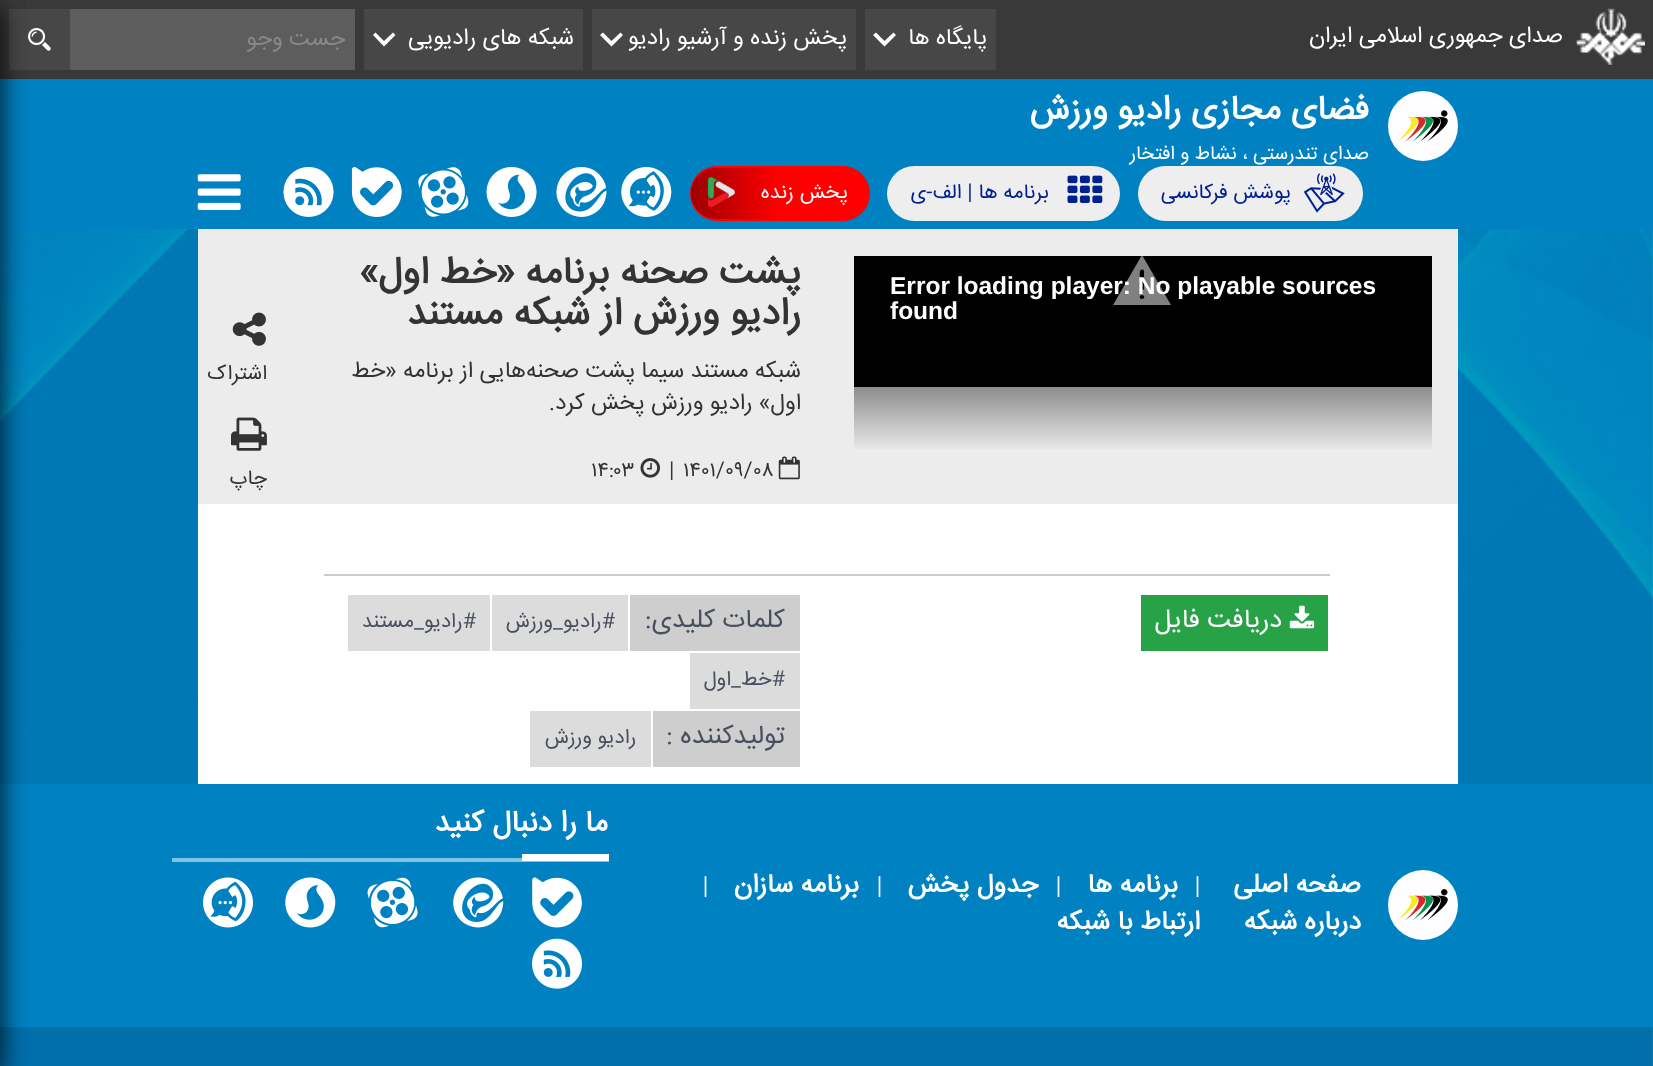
<svg xmlns="http://www.w3.org/2000/svg" width="1653" height="1066">
<defs>
<clipPath id="clip1"><rect x="89" y="21" width="256" height="39"/></clipPath>
<linearGradient id="g1" gradientUnits="userSpaceOnUse" x1="691" y1="193" x2="779" y2="193"><stop offset="0" stop-color="#000" stop-opacity="0.39"/><stop offset="1" stop-color="#000" stop-opacity="0"/></linearGradient>
<linearGradient id="g2" gradientUnits="userSpaceOnUse" x1="1143" y1="255" x2="1143" y2="452"><stop offset="0" stop-color="#000"/><stop offset="0.18" stop-color="#000"/><stop offset="1" stop-color="#000" stop-opacity="0"/></linearGradient>
</defs>
<rect width="100%" height="100%" fill="#fff"/>
<rect width="1653" height="79" fill="#393939"/>
<rect x="9" y="9" width="61" height="61" fill="#474747"/>
<image x="28" y="28" width="23" height="23" href="media/2.png"/>
<rect y="79" width="1653" height="150" fill="#0081c2"/>
<image x="0" y="229" width="1653" height="837" href="media/14.png"/>
<rect y="784" width="1653" height="243" fill="#0081c2"/>
<rect x="-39" y="9" width="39" height="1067" fill="#00000080" filter="blur(13px)"/>
<image x="1576" y="8" width="69" height="57" href="media/1.png"/>
<text x="1563" y="42" style="font-family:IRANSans;font-size:22.75px;direction:rtl;fill:#fff">صدای جمهوری اسلامی ایران</text>
<rect x="865" y="9" width="131" height="61" fill="#474747"/>
<text x="987" y="44" style="font-family:IRANSans;font-size:22.75px;direction:rtl;fill:#fff">پایگاه ها</text>
<path d="M896 35l-2.5-2.5l-9 8.5l-8.5-8.5l-3 2.5l11.5 11.5z" fill="#fff"/>
<rect x="592" y="9" width="264" height="61" fill="#474747"/>
<text x="847" y="44" style="font-family:IRANSans;font-size:22.75px;direction:rtl;fill:#fff">پخش زنده و آرشیو رادیو</text>
<path d="M623 35l-2.5-2.5l-9 8.5l-8.5-8.5l-3 2.5l11.5 11.5z" fill="#fff"/>
<rect x="364" y="9" width="219" height="61" fill="#474747"/>
<text x="574" y="44" style="font-family:IRANSans;font-size:22.75px;direction:rtl;fill:#fff">شبکه های رادیویی</text>
<path d="M395.5 35l-2.5-2.5l-9 8.5l-8.5-8.5l-2.5 2.5l11 11.5z" fill="#fff"/>
<rect x="70" y="9" width="285" height="61" fill="#5d5d5d"/>
<g clip-path="url(#clip1)">
<text x="345" y="45" style="font-family:IRANSans;font-size:22.75px;direction:rtl;fill:#888">جست وجو</text>
</g>
<circle cx="1423" cy="126" r="35" fill="#fefdff"/>
<image x="1398" y="110" width="50" height="32" href="media/3.png"/>
<text x="1369" y="119" style="font-family:IRANSans;font-size:34.1px;font-weight:bold;direction:rtl;fill:#fff">فضای مجازی رادیو ورزش</text>
<text x="1369" y="159" style="font-family:IRANSans;font-size:19.25px;direction:rtl;fill:#fff">صدای تندرستی ، نشاط و افتخار</text>
<rect x="1138" y="166" width="225" height="55" rx="27.5" fill="#eee"/>
<image x="1303" y="173" width="42" height="40" href="media/4.png"/>
<text x="1291" y="198" style="font-family:IRANSans;font-size:20.5px;direction:rtl;fill:#022190">پوشش فرکانسی</text>
<rect x="887" y="166" width="233" height="55" rx="27.5" fill="#eee"/>
<image x="1067" y="175" width="36" height="28" href="media/5.png"/>
<text x="1049" y="198" style="font-family:IRANSans;font-size:20.5px;direction:rtl;fill:#022190">برنامه ها | الف-ی</text>
<rect x="690" y="166" width="180" height="55" rx="27.5" fill="#f00"/>
<text x="848" y="198" style="font-family:IRANSans;font-size:20.5px;direction:rtl;fill:#fff">پخش زنده</text>
<path d="M716.5 168h62.5v51h-62.5c-14 0-25.5-11.5-25.5-25.5c0-14 11.5-25.5 25.5-25.5z" fill="url(#g1)"/>
<image x="707" y="177" width="28" height="31" href="media/6.png"/>
<image x="621" y="166" width="51" height="51" href="media/7.png"/>
<image x="556" y="167" width="51" height="50" href="media/8.png"/>
<image x="486" y="166" width="51" height="51" href="media/9.png"/>
<image x="418" y="167" width="51" height="50" href="media/10.png"/>
<image x="351" y="167" width="51" height="50" href="media/11.png"/>
<image x="283" y="166" width="51" height="51" href="media/12.png"/>
<image x="197" y="174" width="44" height="36" href="media/13.png"/>
<rect x="-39" y="9" width="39" height="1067" fill="#00000080" filter="blur(13px)"/>
<rect x="198" y="504" width="1260" height="280" fill="#fff"/>
<rect x="198" y="229" width="1260" height="275" fill="#ececec"/>
<rect x="854" y="291" width="578" height="96" fill="#000"/>
<rect x="854" y="256" width="578" height="193" fill="url(#g2)"/>
<text x="890" y="294" style="font-family:Liberation Sans;font-size:24.5px;font-weight:bold;fill:#fff">Error loading player: No playable sources</text>
<path d="M1113 305l29-50l29 50zm29-6c3 0 3-4 0-4c-3 0-3 4 0 4zm2-27c0-2-1-3-3-2c-2 0-1 8-1 10c0 1-2 12 3 10l1-1z" fill="#ffffff80"/>
<text x="890" y="319" style="font-family:Liberation Sans;font-size:24.5px;font-weight:bold;fill:#fff">found</text>
<text x="801" y="283" style="font-family:IRANSans;font-size:37.75px;font-weight:bold;direction:rtl;fill:#333">پشت صحنه برنامه «خط اول»</text>
<text x="801" y="324" style="font-family:IRANSans;font-size:37.75px;font-weight:bold;direction:rtl;fill:#333">رادیو ورزش از شبكه مستند</text>
<text x="801" y="377" style="font-family:IRANSans;font-size:22.75px;direction:rtl;fill:#333">شبكه مستند سیما پشت صحنه‌هایی از برنامه «خط</text>
<text x="801" y="409" style="font-family:IRANSans;font-size:22.75px;direction:rtl;fill:#333">اول» رادیو ورزش پخش كرد.</text>
<image x="778" y="456" width="22" height="24" href="media/15.png"/>
<text x="683" y="476" style="font-family:IRANSans;font-size:20.5px;fill:#333">۱۴۰۱/۰۹/۰۸</text>
<text x="669" y="476" style="font-family:IRANSans;font-size:20.5px;fill:#333">|</text>
<image x="640" y="458" width="20" height="20" href="media/16.png"/>
<text x="591" y="476" style="font-family:IRANSans;font-size:20.5px;fill:#333">۱۴:۰۳</text>
<image x="232" y="312" width="34" height="34" href="media/17.png"/>
<text x="267" y="379" style="font-family:IRANSans;font-size:20.5px;direction:rtl;fill:#333">اشتراک</text>
<image x="231" y="417" width="36" height="34" href="media/18.png"/>
<text x="267" y="484" style="font-family:IRANSans;font-size:20.5px;direction:rtl;fill:#333">چاپ</text>
<rect x="324" y="574" width="1006" height="2" fill="#ccc"/>
<rect x="1141" y="595" width="187" height="56" fill="#27a247"/>
<image x="1289" y="605" width="26" height="24" href="media/19.png"/>
<text x="1282" y="627" style="font-family:IRANSans;font-size:26.25px;direction:rtl;fill:#fff">دریافت فایل</text>
<rect x="630" y="595" width="170" height="56" fill="#cecece"/>
<text x="785" y="627" style="font-family:IRANSans;font-size:26.25px;direction:rtl;fill:#484f5f">کلمات کلیدی:</text>
<rect x="492" y="595" width="136" height="56" fill="#dcdcdc"/>
<text x="615" y="627" style="font-family:IRANSans;font-size:20.5px;direction:rtl;fill:#484f5f">#رادیو_ورزش</text>
<rect x="348" y="595" width="142" height="56" fill="#dcdcdc"/>
<text x="476" y="627" style="font-family:IRANSans;font-size:20.5px;direction:rtl;fill:#484f5f">#رادیو_مستند</text>
<rect x="690" y="653" width="110" height="56" fill="#dcdcdc"/>
<text x="785" y="685" style="font-family:IRANSans;font-size:20.5px;direction:rtl;fill:#484f5f">#خط_اول</text>
<rect x="653" y="711" width="147" height="56" fill="#cecece"/>
<text x="785" y="743" style="font-family:IRANSans;font-size:26.25px;direction:rtl;fill:#484f5f">تولیدکننده :</text>
<rect x="530" y="711" width="121" height="56" fill="#dcdcdc"/>
<text x="636" y="743" style="font-family:IRANSans;font-size:20.5px;direction:rtl;fill:#484f5f">رادیو ورزش</text>
<rect x="172" y="858" width="437" height="4" fill="#82c1e1"/>
<text x="608" y="831" style="font-family:IRANSans;font-size:29.5px;font-weight:bold;direction:rtl;fill:#fff">ما را دنبال کنید</text>
<rect x="522" y="854" width="87" height="7" fill="#fff"/>
<image x="532" y="877" width="50" height="51" href="media/20.png"/>
<image x="453" y="877" width="51" height="51" href="media/21.png"/>
<image x="367" y="877" width="51" height="51" href="media/22.png"/>
<image x="285" y="877" width="51" height="51" href="media/23.png"/>
<image x="203" y="877" width="51" height="51" href="media/24.png"/>
<image x="532" y="938" width="51" height="51" href="media/25.png"/>
<circle cx="1423" cy="905" r="35" fill="#fefdff"/>
<image x="1398" y="889" width="50" height="32" href="media/26.png"/>
<text x="1361" y="892" style="font-family:IRANSans;font-size:26.25px;font-weight:bold;direction:rtl;fill:#fff">صفحه اصلی</text>
<text x="1195" y="892" style="font-family:Liberation Serif;font-size:22.75px;font-weight:bold;fill:#fff">|</text>
<text x="1178" y="892" style="font-family:IRANSans;font-size:26.25px;font-weight:bold;direction:rtl;fill:#fff">برنامه ها</text>
<text x="1056" y="892" style="font-family:Liberation Serif;font-size:22.75px;font-weight:bold;fill:#fff">|</text>
<text x="1038" y="892" style="font-family:IRANSans;font-size:26.25px;font-weight:bold;direction:rtl;fill:#fff">جدول پخش</text>
<text x="877" y="892" style="font-family:Liberation Serif;font-size:22.75px;font-weight:bold;fill:#fff">|</text>
<text x="859" y="892" style="font-family:IRANSans;font-size:26.25px;font-weight:bold;direction:rtl;fill:#fff">برنامه سازان</text>
<text x="703" y="892" style="font-family:Liberation Serif;font-size:22.75px;font-weight:bold;fill:#fff">|</text>
<text x="1361" y="929" style="font-family:IRANSans;font-size:26.25px;font-weight:bold;direction:rtl;fill:#fff">درباره شبکه</text>
<text x="1200" y="929" style="font-family:IRANSans;font-size:26.25px;font-weight:bold;direction:rtl;fill:#fff">ارتباط با شبکه</text>
</svg>
